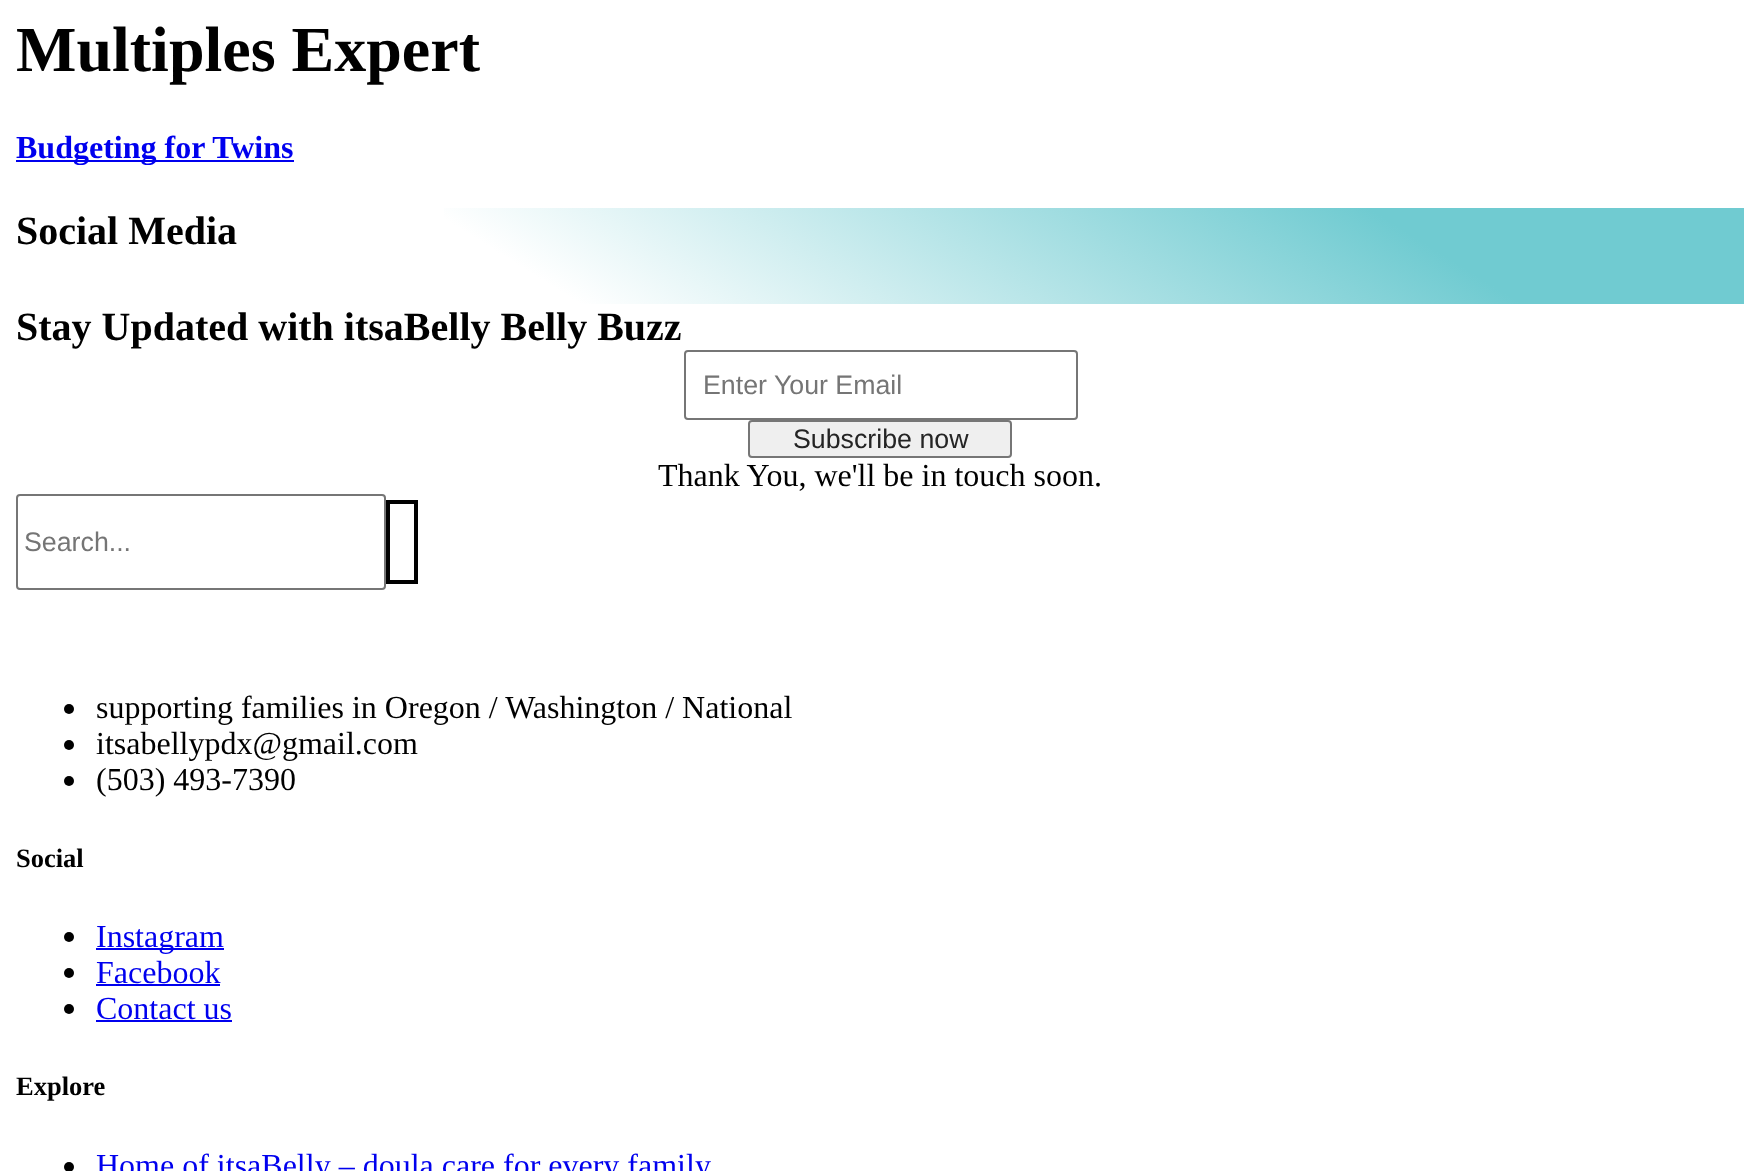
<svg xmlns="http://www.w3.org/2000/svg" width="1759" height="1171">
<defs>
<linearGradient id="g1" gradientUnits="userSpaceOnUse" x1="1144" y1="-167" x2="616" y2="679"><stop offset="0.2" stop-color="#70cbd1"/><stop offset="0.7" stop-color="#fff"/></linearGradient>
</defs>
<rect width="100%" height="100%" fill="#fff"/>
<text x="16" y="71" style="font-family:Liberation Serif;font-size:64px;font-weight:bold;fill:#000">Multiples Expert</text>
<rect x="16" y="160" width="278" height="2" fill="#00e"/>
<text x="16" y="158" style="font-family:Liberation Serif;font-size:32px;font-weight:bold;fill:#00e">Budgeting for Twins</text>
<rect x="444" y="208" width="1300" height="96" fill="url(#g1)"/>
<text x="16" y="244" style="font-family:Liberation Serif;font-size:40px;font-weight:bold;fill:#000">Social Media</text>
<text x="16" y="340" style="font-family:Liberation Serif;font-size:40px;font-weight:bold;fill:#000">Stay Updated with itsaBelly Belly Buzz</text>
<rect x="685" y="351" width="392" height="68" rx="3" fill="none" stroke="#767676" stroke-width="2"/>
<text x="703" y="394" style="font-family:Liberation Sans;font-size:26.75px;fill:#757575">Enter Your Email</text>
<rect x="749" y="421" width="262" height="36" rx="3" fill="#efefef" stroke="#767676" stroke-width="2"/>
<text x="793" y="448" style="font-family:Liberation Sans;font-size:26.75px;fill:#242424">Subscribe now</text>
<text x="658" y="486" style="font-family:Liberation Serif;font-size:32px;fill:#000">Thank You, we'll be in touch soon.</text>
<rect x="17" y="495" width="368" height="94" rx="3" fill="none" stroke="#767676" stroke-width="2"/>
<text x="24" y="551" style="font-family:Liberation Sans;font-size:26.75px;fill:#757575">Search...</text>
<rect x="388" y="502" width="28" height="80" fill="none" stroke="#000" stroke-width="4"/>
<circle cx="69" cy="709" r="5" fill="#000"/>
<text x="96" y="718" style="font-family:Liberation Serif;font-size:32px;fill:#000">supporting families in Oregon / Washington / National</text>
<circle cx="69" cy="745" r="5" fill="#000"/>
<text x="96" y="754" style="font-family:Liberation Serif;font-size:32px;fill:#000">itsabellypdx@gmail.com</text>
<circle cx="69" cy="781" r="5" fill="#000"/>
<text x="96" y="790" style="font-family:Liberation Serif;font-size:32px;fill:#000">(503) 493-7390</text>
<text x="16" y="867" style="font-family:Liberation Serif;font-size:26.5px;font-weight:bold;fill:#000">Social</text>
<circle cx="69" cy="937" r="5" fill="#000"/>
<rect x="96" y="948" width="128" height="2" fill="#00e"/>
<text x="96" y="947" style="font-family:Liberation Serif;font-size:32px;fill:#00e">Instagram</text>
<circle cx="69" cy="973" r="5" fill="#000"/>
<text x="96" y="983" style="font-family:Liberation Serif;font-size:32px;fill:#00e">Facebook</text>
<rect x="96" y="984" width="124" height="2" fill="#00e"/>
<circle cx="69" cy="1009" r="5" fill="#000"/>
<text x="96" y="1019" style="font-family:Liberation Serif;font-size:32px;fill:#00e">Contact us</text>
<rect x="96" y="1020" width="136" height="2" fill="#00e"/>
<text x="16" y="1095" style="font-family:Liberation Serif;font-size:26.5px;font-weight:bold;fill:#000">Explore</text>
<circle cx="69" cy="1167" r="5" fill="#000"/>
<text x="96" y="1176" style="font-family:Liberation Serif;font-size:32px;fill:#00e">Home of itsaBelly – doula care for every family</text>
</svg>
